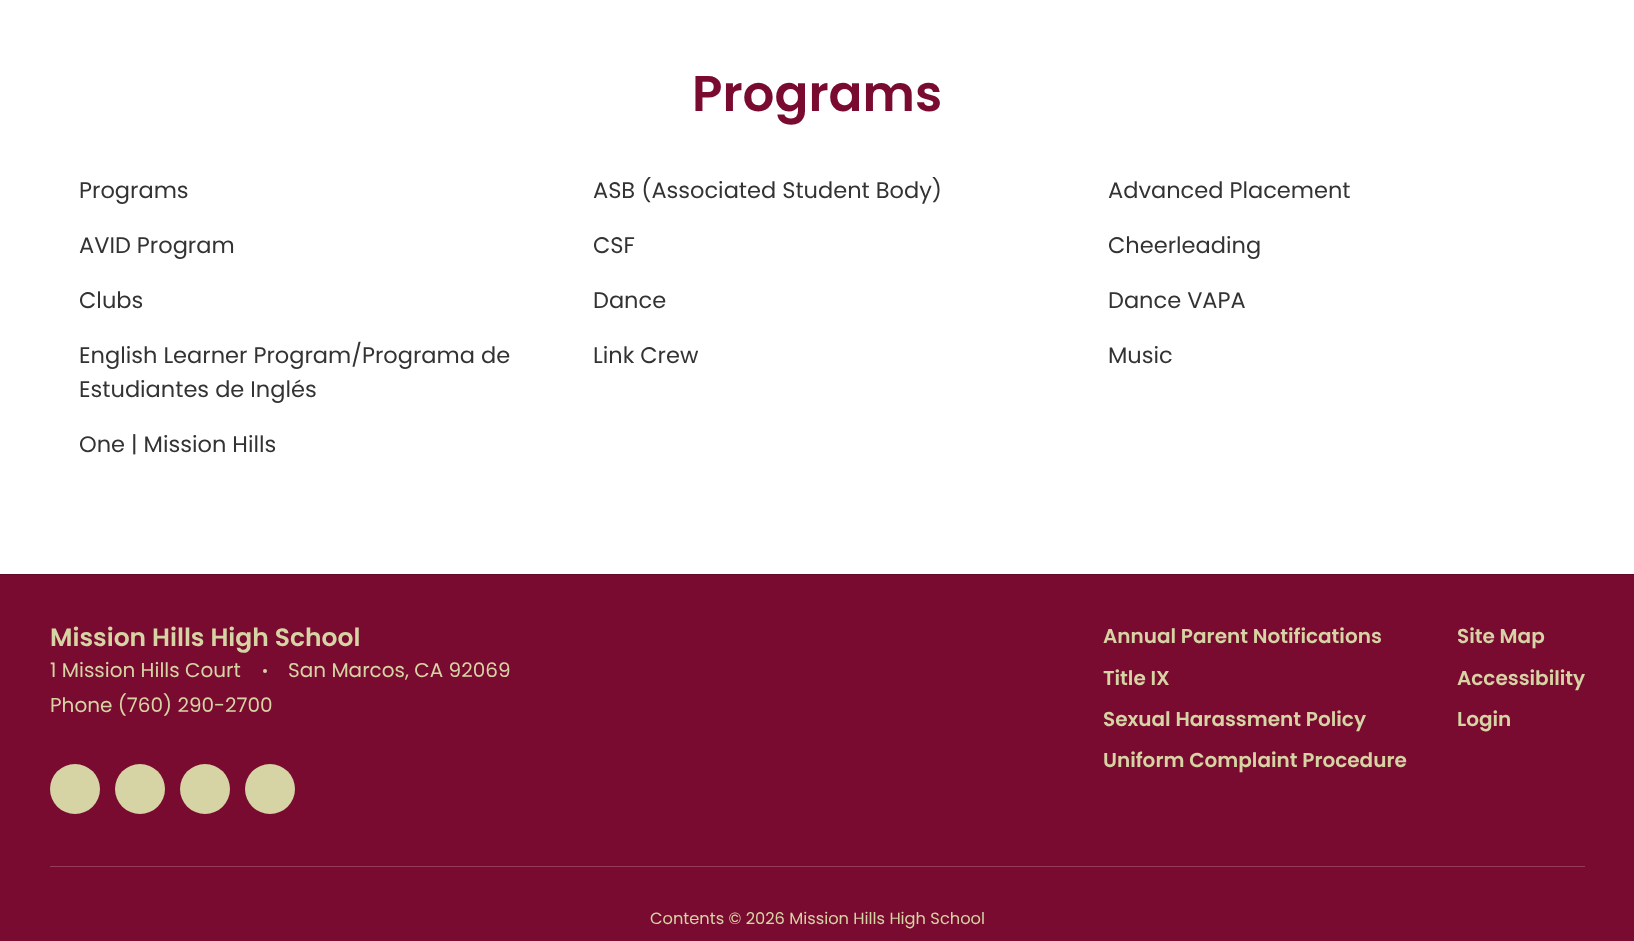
<svg xmlns="http://www.w3.org/2000/svg" width="1634" height="941">
<rect width="100%" height="100%" fill="#fff"/>
<text x="692" y="111" style="font-family:Poppins;font-size:50px;font-weight:600;fill:#790b31">Programs</text>
<text x="79" y="198" style="font-family:Poppins;font-size:22.5px;fill:#333">Programs</text>
<text x="593" y="198" style="font-family:Poppins;font-size:22.5px;fill:#333">ASB (Associated Student Body)</text>
<text x="1108" y="198" style="font-family:Poppins;font-size:22.5px;fill:#333">Advanced Placement</text>
<text x="79" y="253" style="font-family:Poppins;font-size:22.5px;fill:#333">AVID Program</text>
<text x="593" y="253" style="font-family:Poppins;font-size:22.5px;fill:#333">CSF</text>
<text x="1108" y="253" style="font-family:Poppins;font-size:22.5px;fill:#333">Cheerleading</text>
<text x="79" y="308" style="font-family:Poppins;font-size:22.5px;fill:#333">Clubs</text>
<text x="593" y="308" style="font-family:Poppins;font-size:22.5px;fill:#333">Dance</text>
<text x="1108" y="308" style="font-family:Poppins;font-size:22.5px;fill:#333">Dance VAPA</text>
<text x="79" y="363" style="font-family:Poppins;font-size:22.5px;fill:#333">English Learner Program/Programa de</text>
<text x="79" y="397" style="font-family:Poppins;font-size:22.5px;fill:#333">Estudiantes de Inglés</text>
<text x="593" y="363" style="font-family:Poppins;font-size:22.5px;fill:#333">Link Crew</text>
<text x="1108" y="363" style="font-family:Poppins;font-size:22.5px;fill:#333">Music</text>
<text x="79" y="452" style="font-family:Poppins;font-size:22.5px;fill:#333">One | Mission Hills</text>
<rect y="574" width="1634" height="1" fill="#610927"/>
<rect y="575" width="1634" height="366" fill="#790b31"/>
<text x="50" y="646" style="font-family:Poppins;font-size:25px;font-weight:600;fill:#d6d4a4">Mission Hills High School</text>
<text x="50" y="677" style="font-family:Poppins;font-size:20px;fill:#d6d4a4">1 Mission Hills Court</text>
<circle cx="265" cy="671" r="2" fill="#d6d4a4"/>
<text x="288" y="677" style="font-family:Poppins;font-size:20px;fill:#d6d4a4">San Marcos, CA 92069</text>
<text x="50" y="712" style="font-family:Poppins;font-size:20px;fill:#d6d4a4">Phone (760) 290-2700</text>
<circle cx="75" cy="789" r="25" fill="#d6d4a4"/>
<circle cx="140" cy="789" r="25" fill="#d6d4a4"/>
<circle cx="205" cy="789" r="25" fill="#d6d4a4"/>
<circle cx="270" cy="789" r="25" fill="#d6d4a4"/>
<text x="1103" y="643" style="font-family:Poppins;font-size:20px;font-weight:600;fill:#d6d4a4">Annual Parent Notifications</text>
<text x="1103" y="685" style="font-family:Poppins;font-size:20px;font-weight:600;fill:#d6d4a4">Title IX</text>
<text x="1103" y="726" style="font-family:Poppins;font-size:20px;font-weight:600;fill:#d6d4a4">Sexual Harassment Policy</text>
<text x="1103" y="767" style="font-family:Poppins;font-size:20px;font-weight:600;fill:#d6d4a4">Uniform Complaint Procedure</text>
<text x="1457" y="643" style="font-family:Poppins;font-size:20px;font-weight:600;fill:#d6d4a4">Site Map</text>
<text x="1457" y="685" style="font-family:Poppins;font-size:20px;font-weight:600;fill:#d6d4a4">Accessibility</text>
<text x="1457" y="726" style="font-family:Poppins;font-size:20px;font-weight:600;fill:#d6d4a4">Login</text>
<rect x="50" y="866" width="1535" height="1" fill="#943c5a"/>
<text x="650" y="924" style="font-family:Poppins;font-size:16.25px;fill:#d6d4a4">Contents © 2026 Mission Hills High School</text>
</svg>
